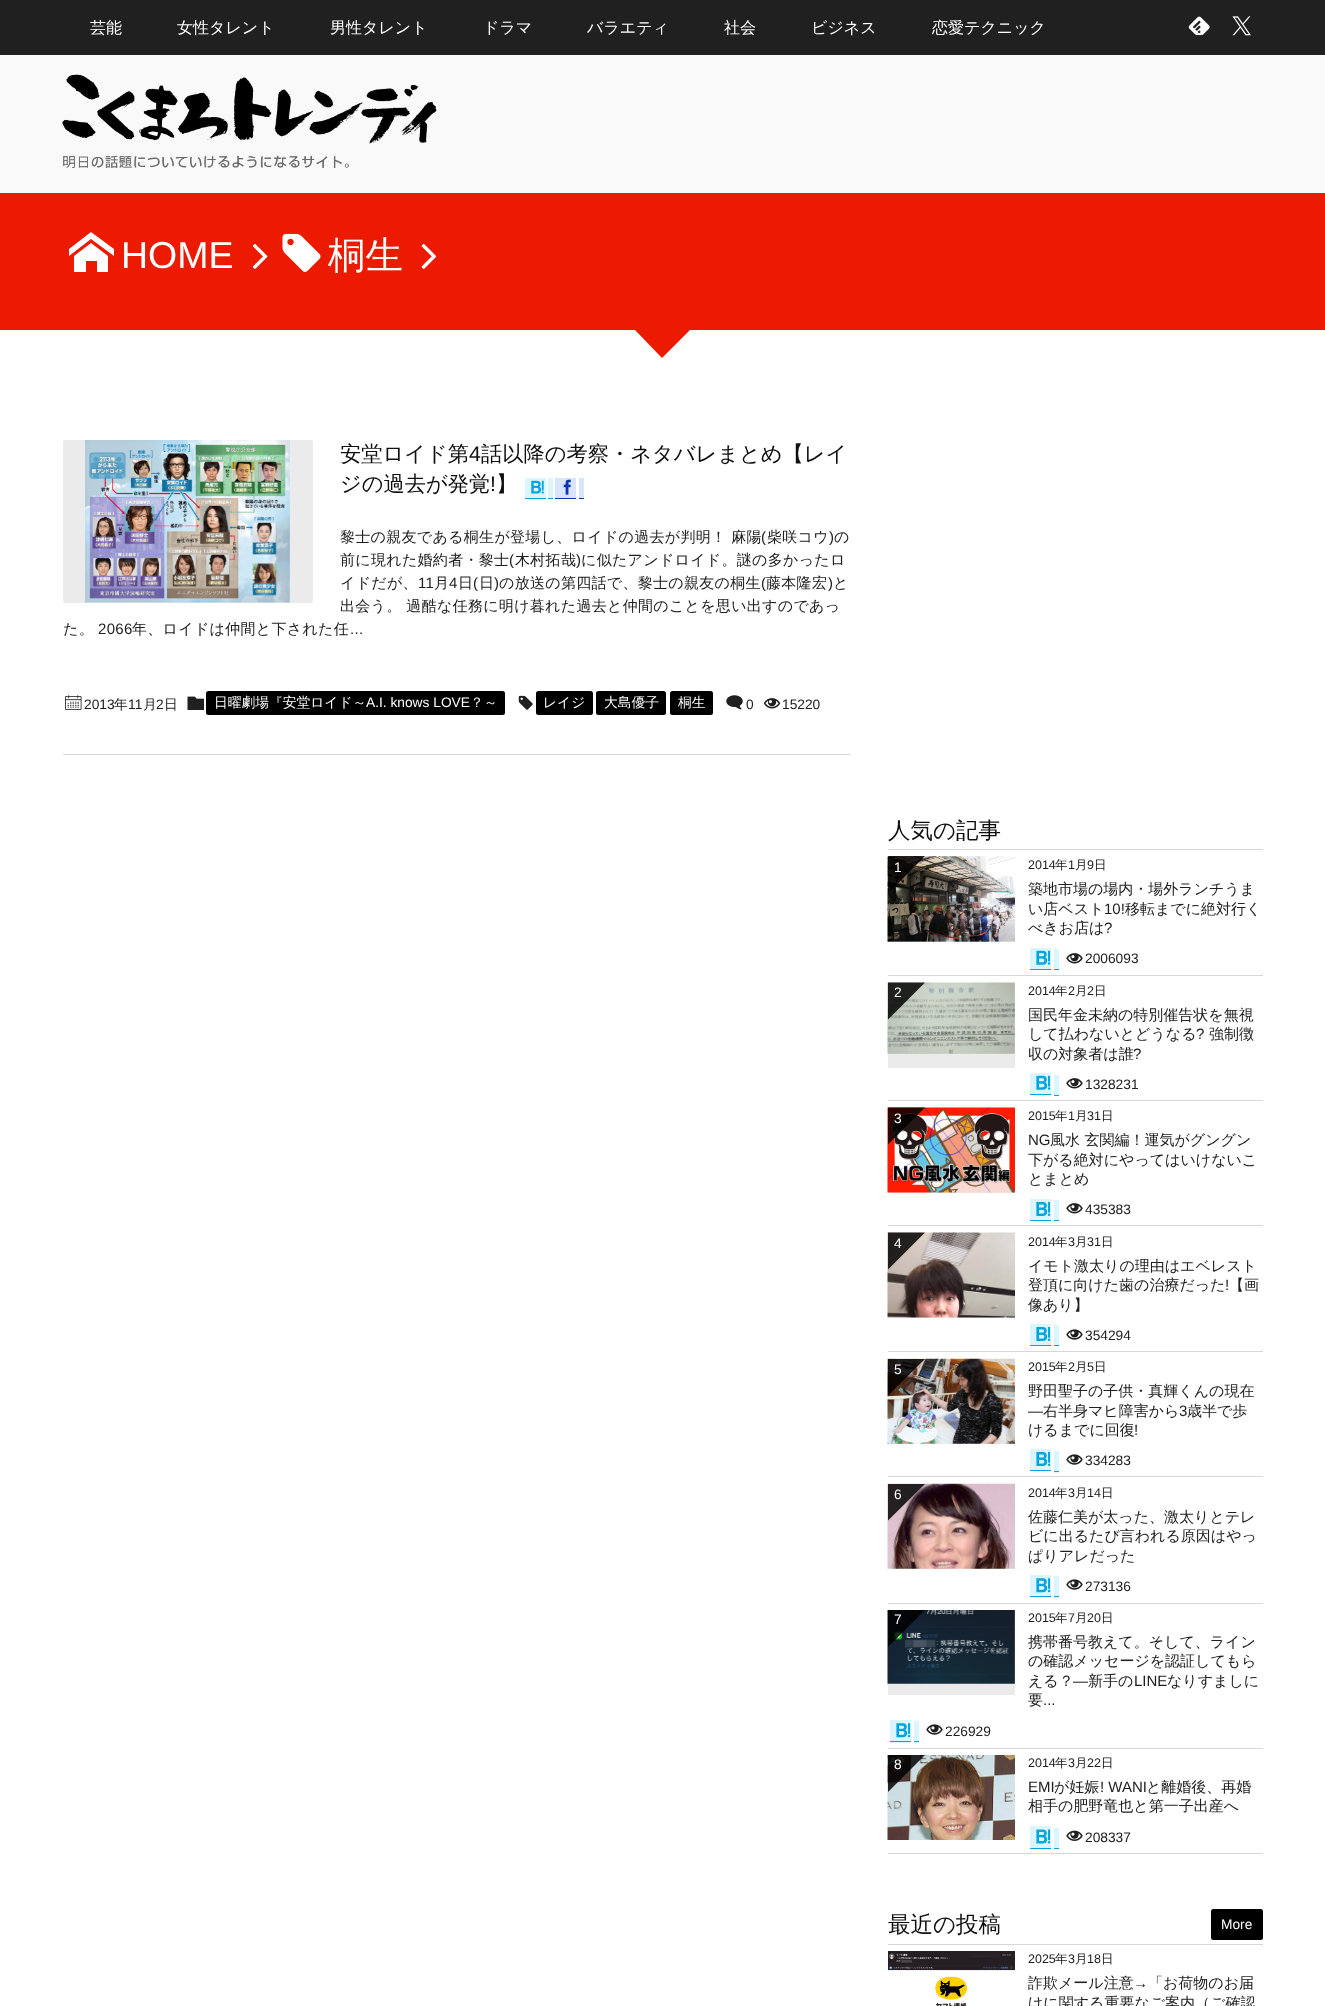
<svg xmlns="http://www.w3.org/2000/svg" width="1325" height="2006">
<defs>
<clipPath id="clip1"><rect x="888" y="850" width="375" height="1004"/></clipPath>
</defs>
<rect width="100%" height="100%" fill="#fff"/>
<rect y="55" width="1325" height="138" fill="#f9f9f9"/>
<rect width="1325" height="55" fill="#202020"/>
<text x="90" y="33" style="font-family:WenQuanYi Zen Hei;font-size:16px;font-weight:500;fill:#fff">芸能</text>
<text x="177" y="33" style="font-family:WenQuanYi Zen Hei;font-size:16px;font-weight:500;fill:#fff">女性タレント</text>
<text x="330" y="33" style="font-family:WenQuanYi Zen Hei;font-size:16px;font-weight:500;fill:#fff">男性タレント</text>
<text x="483" y="33" style="font-family:WenQuanYi Zen Hei;font-size:16px;font-weight:500;fill:#fff">ドラマ</text>
<text x="587" y="33" style="font-family:WenQuanYi Zen Hei;font-size:16px;font-weight:500;fill:#fff">バラエティ</text>
<text x="724" y="33" style="font-family:WenQuanYi Zen Hei;font-size:16px;font-weight:500;fill:#fff">社会</text>
<text x="811" y="33" style="font-family:WenQuanYi Zen Hei;font-size:16px;font-weight:500;fill:#fff">ビジネス</text>
<text x="932" y="33" style="font-family:WenQuanYi Zen Hei;font-size:16px;font-weight:500;fill:#fff">恋愛テクニック</text>
<image x="1188" y="16" width="22" height="20" href="media/1.png"/>
<image x="1232" y="16" width="19" height="20" href="media/2.png"/>
<image x="62" y="74" width="375" height="94" href="media/3.png"/>
<rect y="193" width="1325" height="137" fill="#eb1a00"/>
<text x="121" y="268" style="font-family:Liberation Sans;font-size:37.5px;fill:#fff">HOME</text>
<path d="M114 256l-23-17l-22 17v-7l22-17l23 17zm-6 0v16h-11v-11h-11v11h-12v-16l17-13z" fill="#fff"/>
<image x="252" y="244" width="16" height="25" href="media/4.png"/>
<image x="282" y="233" width="39" height="39" href="media/5.png"/>
<text x="328" y="268" style="font-family:WenQuanYi Zen Hei;font-size:37.5px;font-weight:500;fill:#fff">桐生</text>
<image x="421" y="243" width="16" height="26" href="media/6.png"/>
<path d="M635 330h55l-28 28z" fill="#eb1a00"/>
<rect x="63" y="754" width="787" height="1" fill="#d7d7d7"/>
<rect x="63" y="440" width="250" height="163" rx="2.5" fill="#ebebeb"/>
<image x="85" y="440" width="205" height="163" href="media/7.png"/>
<text x="340" y="461" style="font-family:WenQuanYi Zen Hei;font-size:21.25px;font-weight:500;fill:#0f0f0f">安堂ロイド第</text>
<text x="469" y="461" style="font-family:Liberation Sans;font-size:21.25px;fill:#0f0f0f">4</text>
<text x="481" y="461" style="font-family:WenQuanYi Zen Hei;font-size:21.25px;font-weight:500;fill:#0f0f0f">話以降の考察・ネタバレまとめ【レイ</text>
<text x="340" y="491" style="font-family:WenQuanYi Zen Hei;font-size:21.25px;font-weight:500;fill:#0f0f0f">ジの過去が発覚</text>
<text x="490" y="491" style="font-family:Liberation Sans;font-size:21.25px;fill:#0f0f0f">!</text>
<text x="496" y="491" style="font-family:WenQuanYi Zen Hei;font-size:21.25px;font-weight:500;fill:#0f0f0f">】</text>
<rect x="525" y="478" width="21" height="20" fill="#dbf5ff"/>
<rect x="548" y="478" width="5" height="21" fill="#dbf5ff"/>
<rect x="555" y="478" width="21" height="20" fill="#dbe4fd"/>
<rect x="579" y="478" width="5" height="21" fill="#dbe4fd"/>
<image x="531" y="480" width="13" height="14" href="media/8.png"/>
<image x="563" y="479" width="8" height="16" href="media/9.png"/>
<rect x="525" y="498" width="21" height="1" fill="#00a5de"/>
<rect x="548" y="498" width="5" height="1" fill="#00a5de"/>
<rect x="555" y="498" width="21" height="1" fill="#0c37ac"/>
<rect x="579" y="498" width="5" height="1" fill="#0c37ac"/>
<text x="340" y="542" style="font-family:WenQuanYi Zen Hei;font-size:15px;font-weight:500;letter-spacing:0.3px;fill:#202020">黎士の親友である桐生が登場し、ロイドの過去が判明！ 麻陽</text>
<text x="761" y="542" style="font-family:Liberation Sans;font-size:15px;letter-spacing:0.3px;fill:#202020">(</text>
<text x="767" y="542" style="font-family:WenQuanYi Zen Hei;font-size:15px;font-weight:500;letter-spacing:0.3px;fill:#202020">柴咲コウ</text>
<text x="829" y="542" style="font-family:Liberation Sans;font-size:15px;letter-spacing:0.3px;fill:#202020">)</text>
<text x="834" y="542" style="font-family:WenQuanYi Zen Hei;font-size:15px;font-weight:500;letter-spacing:0.3px;fill:#202020">の</text>
<text x="340" y="565" style="font-family:WenQuanYi Zen Hei;font-size:15px;font-weight:500;letter-spacing:0.3px;fill:#202020">前に現れた婚約者・黎士</text>
<text x="509" y="565" style="font-family:Liberation Sans;font-size:15px;letter-spacing:0.3px;fill:#202020">(</text>
<text x="515" y="565" style="font-family:WenQuanYi Zen Hei;font-size:15px;font-weight:500;letter-spacing:0.3px;fill:#202020">木村拓哉</text>
<text x="576" y="565" style="font-family:Liberation Sans;font-size:15px;letter-spacing:0.3px;fill:#202020">)</text>
<text x="581" y="565" style="font-family:WenQuanYi Zen Hei;font-size:15px;font-weight:500;letter-spacing:0.3px;fill:#202020">に似たアンドロイド。謎の多かったロ</text>
<text x="340" y="588" style="font-family:WenQuanYi Zen Hei;font-size:15px;font-weight:500;letter-spacing:0.3px;fill:#202020">イドだが、</text>
<text x="418" y="588" style="font-family:Liberation Sans;font-size:15px;letter-spacing:0.3px;fill:#202020">11</text>
<text x="434" y="588" style="font-family:WenQuanYi Zen Hei;font-size:15px;font-weight:500;letter-spacing:0.3px;fill:#202020">月</text>
<text x="449" y="588" style="font-family:Liberation Sans;font-size:15px;letter-spacing:0.3px;fill:#202020">4</text>
<text x="458" y="588" style="font-family:WenQuanYi Zen Hei;font-size:15px;font-weight:500;letter-spacing:0.3px;fill:#202020">日</text>
<text x="473" y="588" style="font-family:Liberation Sans;font-size:15px;letter-spacing:0.3px;fill:#202020">(</text>
<text x="479" y="588" style="font-family:WenQuanYi Zen Hei;font-size:15px;font-weight:500;letter-spacing:0.3px;fill:#202020">日</text>
<text x="494" y="588" style="font-family:Liberation Sans;font-size:15px;letter-spacing:0.3px;fill:#202020">)</text>
<text x="499" y="588" style="font-family:WenQuanYi Zen Hei;font-size:15px;font-weight:500;letter-spacing:0.3px;fill:#202020">の放送の第四話で、黎士の親友の桐生</text>
<text x="761" y="588" style="font-family:Liberation Sans;font-size:15px;letter-spacing:0.3px;fill:#202020">(</text>
<text x="766" y="588" style="font-family:WenQuanYi Zen Hei;font-size:15px;font-weight:500;letter-spacing:0.3px;fill:#202020">藤本隆宏</text>
<text x="828" y="588" style="font-family:Liberation Sans;font-size:15px;letter-spacing:0.3px;fill:#202020">)</text>
<text x="833" y="588" style="font-family:WenQuanYi Zen Hei;font-size:15px;font-weight:500;letter-spacing:0.3px;fill:#202020">と</text>
<text x="340" y="611" style="font-family:WenQuanYi Zen Hei;font-size:15px;font-weight:500;letter-spacing:0.3px;fill:#202020">出会う。 過酷な任務に明け暮れた過去と仲間のことを思い出すのであっ</text>
<text x="63" y="634" style="font-family:WenQuanYi Zen Hei;font-size:15px;font-weight:500;letter-spacing:0.3px;fill:#202020">た。</text>
<text x="98" y="634" style="font-family:Liberation Sans;font-size:15px;letter-spacing:0.3px;fill:#202020">2066</text>
<text x="132" y="634" style="font-family:WenQuanYi Zen Hei;font-size:15px;font-weight:500;letter-spacing:0.3px;fill:#202020">年、ロイドは仲間と下された任</text>
<text x="350" y="634" style="font-family:Liberation Sans;font-size:15px;letter-spacing:0.3px;fill:#202020">...</text>
<image x="65" y="695" width="17" height="15" href="media/10.png"/>
<text x="84" y="709" style="font-family:Liberation Sans;font-size:13.75px;fill:#202020">2013</text>
<text x="114" y="709" style="font-family:WenQuanYi Zen Hei;font-size:13.75px;font-weight:500;fill:#202020">年</text>
<text x="128" y="709" style="font-family:Liberation Sans;font-size:13.75px;fill:#202020">11</text>
<text x="143" y="709" style="font-family:WenQuanYi Zen Hei;font-size:13.75px;font-weight:500;fill:#202020">月</text>
<text x="156" y="709" style="font-family:Liberation Sans;font-size:13.75px;fill:#202020">2</text>
<text x="164" y="709" style="font-family:WenQuanYi Zen Hei;font-size:13.75px;font-weight:500;fill:#202020">日</text>
<image x="187" y="696" width="17" height="14" href="media/11.png"/>
<rect x="206" y="691" width="299" height="24" rx="2.5" fill="#000"/>
<text x="214" y="707" style="font-family:WenQuanYi Zen Hei;font-size:13.75px;font-weight:500;fill:#fff">日曜劇場『安堂ロイド～</text>
<text x="366" y="707" style="font-family:Liberation Sans;font-size:13.75px;fill:#fff">A.I. knows LOVE</text>
<text x="470" y="707" style="font-family:WenQuanYi Zen Hei;font-size:13.75px;font-weight:500;fill:#fff">？～</text>
<image x="518" y="695" width="15" height="15" href="media/12.png"/>
<rect x="536" y="691" width="57" height="24" rx="2.5" fill="#000"/>
<text x="543" y="707" style="font-family:WenQuanYi Zen Hei;font-size:13.75px;font-weight:500;fill:#fff">レイジ</text>
<rect x="596" y="691" width="70" height="24" rx="2.5" fill="#000"/>
<text x="604" y="707" style="font-family:WenQuanYi Zen Hei;font-size:13.75px;font-weight:500;fill:#fff">大島優子</text>
<rect x="670" y="691" width="43" height="24" rx="2.5" fill="#000"/>
<text x="678" y="707" style="font-family:WenQuanYi Zen Hei;font-size:13.75px;font-weight:500;fill:#fff">桐生</text>
<image x="726" y="695" width="17" height="15" href="media/13.png"/>
<text x="746" y="709" style="font-family:Liberation Sans;font-size:13.75px;fill:#202020">0</text>
<image x="763" y="698" width="18" height="11" href="media/14.png"/>
<text x="782" y="709" style="font-family:Liberation Sans;font-size:13.75px;fill:#202020">15220</text>
<rect x="888" y="849" width="375" height="1" fill="#d7d7d7"/>
<text x="888" y="838" style="font-family:WenQuanYi Zen Hei;font-size:22.5px;font-weight:500;fill:#0f0f0f">人気の記事</text>
<rect x="888" y="975" width="375" height="1" fill="#d7d7d7"/>
<image x="887" y="856" width="128" height="86" href="media/15.png"/>
<text x="1028" y="869" style="font-family:Liberation Sans;font-size:12.5px;fill:#202020">2014</text>
<text x="1055" y="869" style="font-family:WenQuanYi Zen Hei;font-size:12.5px;font-weight:500;fill:#202020">年</text>
<text x="1068" y="869" style="font-family:Liberation Sans;font-size:12.5px;fill:#202020">1</text>
<text x="1075" y="869" style="font-family:WenQuanYi Zen Hei;font-size:12.5px;font-weight:500;fill:#202020">月</text>
<text x="1087" y="869" style="font-family:Liberation Sans;font-size:12.5px;fill:#202020">9</text>
<text x="1094" y="869" style="font-family:WenQuanYi Zen Hei;font-size:12.5px;font-weight:500;fill:#202020">日</text>
<text x="1028" y="894" style="font-family:WenQuanYi Zen Hei;font-size:15px;font-weight:500;fill:#202020">築地市場の場内・場外ランチうま</text>
<text x="1028" y="914" style="font-family:WenQuanYi Zen Hei;font-size:15px;font-weight:500;fill:#202020">い店ベスト</text>
<text x="1104" y="914" style="font-family:Liberation Sans;font-size:15px;fill:#202020">10!</text>
<text x="1125" y="914" style="font-family:WenQuanYi Zen Hei;font-size:15px;font-weight:500;fill:#202020">移転までに絶対行く</text>
<text x="1028" y="933" style="font-family:WenQuanYi Zen Hei;font-size:15px;font-weight:500;fill:#202020">べきお店は</text>
<text x="1104" y="933" style="font-family:Liberation Sans;font-size:15px;fill:#202020">?</text>
<rect x="1030" y="948" width="21" height="21" fill="#dbf5ff"/>
<rect x="1054" y="949" width="5" height="21" fill="#dbf5ff"/>
<image x="1036" y="950" width="15" height="15" href="media/16.png"/>
<rect x="1030" y="969" width="21" height="1" fill="#00a5de"/>
<rect x="1054" y="969" width="5" height="1" fill="#00a5de"/>
<image x="1066" y="953" width="17" height="11" href="media/17.png"/>
<text x="1085" y="963" style="font-family:Liberation Sans;font-size:13.75px;fill:#202020">2006093</text>
<g clip-path="url(#clip1)">
<path d="M887.5 856h37.5l-37.5 38z" fill="#000000d6"/>
</g>
<text x="894" y="872" style="font-family:Liberation Sans;font-size:13.75px;fill:#fff">1</text>
<rect x="888" y="1100" width="375" height="1" fill="#d7d7d7"/>
<rect x="888" y="983" width="127" height="85" fill="#ebebeb"/>
<image x="887" y="982" width="128" height="72" href="media/18.png"/>
<text x="1028" y="995" style="font-family:Liberation Sans;font-size:12.5px;fill:#202020">2014</text>
<text x="1055" y="995" style="font-family:WenQuanYi Zen Hei;font-size:12.5px;font-weight:500;fill:#202020">年</text>
<text x="1068" y="995" style="font-family:Liberation Sans;font-size:12.5px;fill:#202020">2</text>
<text x="1075" y="995" style="font-family:WenQuanYi Zen Hei;font-size:12.5px;font-weight:500;fill:#202020">月</text>
<text x="1087" y="995" style="font-family:Liberation Sans;font-size:12.5px;fill:#202020">2</text>
<text x="1094" y="995" style="font-family:WenQuanYi Zen Hei;font-size:12.5px;font-weight:500;fill:#202020">日</text>
<text x="1028" y="1020" style="font-family:WenQuanYi Zen Hei;font-size:15px;font-weight:500;fill:#202020">国民年金未納の特別催告状を無視</text>
<text x="1028" y="1039" style="font-family:WenQuanYi Zen Hei;font-size:15px;font-weight:500;fill:#202020">して払わないとどうなる</text>
<text x="1196" y="1039" style="font-family:Liberation Sans;font-size:15px;fill:#202020">?</text>
<text x="1209" y="1039" style="font-family:WenQuanYi Zen Hei;font-size:15px;font-weight:500;fill:#202020">強制徴</text>
<text x="1028" y="1059" style="font-family:WenQuanYi Zen Hei;font-size:15px;font-weight:500;fill:#202020">収の対象者は誰</text>
<text x="1133" y="1059" style="font-family:Liberation Sans;font-size:15px;fill:#202020">?</text>
<rect x="1030" y="1073" width="21" height="21" fill="#dbf5ff"/>
<image x="1036" y="1075" width="15" height="15" href="media/16.png"/>
<rect x="1054" y="1075" width="5" height="21" fill="#dbf5ff"/>
<rect x="1030" y="1094" width="21" height="1" fill="#00a5de"/>
<rect x="1054" y="1095" width="5" height="1" fill="#00a5de"/>
<image x="1066" y="1078" width="17" height="11" href="media/17.png"/>
<text x="1085" y="1089" style="font-family:Liberation Sans;font-size:13.75px;fill:#202020">1328231</text>
<g clip-path="url(#clip1)">
<path d="M887.5 982.5h37.5l-37.5 37.5z" fill="#000000d6"/>
</g>
<text x="894" y="997" style="font-family:Liberation Sans;font-size:13.75px;fill:#fff">2</text>
<rect x="888" y="1225" width="375" height="1" fill="#d7d7d7"/>
<rect x="888" y="1192" width="127" height="1" fill="#ebebeb"/>
<image x="887" y="1107" width="128" height="86" href="media/19.png"/>
<text x="1028" y="1120" style="font-family:Liberation Sans;font-size:12.5px;fill:#202020">2015</text>
<text x="1055" y="1120" style="font-family:WenQuanYi Zen Hei;font-size:12.5px;font-weight:500;fill:#202020">年</text>
<text x="1068" y="1120" style="font-family:Liberation Sans;font-size:12.5px;fill:#202020">1</text>
<text x="1075" y="1120" style="font-family:WenQuanYi Zen Hei;font-size:12.5px;font-weight:500;fill:#202020">月</text>
<text x="1087" y="1120" style="font-family:Liberation Sans;font-size:12.5px;fill:#202020">31</text>
<text x="1101" y="1120" style="font-family:WenQuanYi Zen Hei;font-size:12.5px;font-weight:500;fill:#202020">日</text>
<text x="1028" y="1145" style="font-family:Liberation Sans;font-size:15px;fill:#202020">NG</text>
<text x="1050" y="1145" style="font-family:WenQuanYi Zen Hei;font-size:15px;font-weight:500;fill:#202020">風水 玄関編！運気がグングン</text>
<text x="1028" y="1165" style="font-family:WenQuanYi Zen Hei;font-size:15px;font-weight:500;fill:#202020">下がる絶対にやってはいけないこ</text>
<text x="1028" y="1184" style="font-family:WenQuanYi Zen Hei;font-size:15px;font-weight:500;fill:#202020">とまとめ</text>
<rect x="1030" y="1199" width="21" height="21" fill="#dbf5ff"/>
<rect x="1054" y="1200" width="5" height="21" fill="#dbf5ff"/>
<image x="1036" y="1202" width="15" height="14" href="media/20.png"/>
<rect x="1030" y="1220" width="21" height="1" fill="#00a5de"/>
<rect x="1054" y="1220" width="5" height="1" fill="#00a5de"/>
<image x="1066" y="1203" width="17" height="11" href="media/17.png"/>
<text x="1085" y="1214" style="font-family:Liberation Sans;font-size:13.75px;fill:#202020">435383</text>
<g clip-path="url(#clip1)">
<path d="M887.5 1107.5h37.5l-37.5 37.5z" fill="#000000d6"/>
</g>
<text x="894" y="1123" style="font-family:Liberation Sans;font-size:13.75px;fill:#fff">3</text>
<rect x="888" y="1351" width="375" height="1" fill="#d7d7d7"/>
<rect x="888" y="1317" width="127" height="1" fill="#ebebeb"/>
<image x="887" y="1232" width="128" height="86" href="media/21.png"/>
<text x="1028" y="1246" style="font-family:Liberation Sans;font-size:12.5px;fill:#202020">2014</text>
<text x="1055" y="1246" style="font-family:WenQuanYi Zen Hei;font-size:12.5px;font-weight:500;fill:#202020">年</text>
<text x="1068" y="1246" style="font-family:Liberation Sans;font-size:12.5px;fill:#202020">3</text>
<text x="1075" y="1246" style="font-family:WenQuanYi Zen Hei;font-size:12.5px;font-weight:500;fill:#202020">月</text>
<text x="1087" y="1246" style="font-family:Liberation Sans;font-size:12.5px;fill:#202020">31</text>
<text x="1101" y="1246" style="font-family:WenQuanYi Zen Hei;font-size:12.5px;font-weight:500;fill:#202020">日</text>
<text x="1028" y="1271" style="font-family:WenQuanYi Zen Hei;font-size:15px;font-weight:500;fill:#202020">イモト激太りの理由はエベレスト</text>
<text x="1028" y="1290" style="font-family:WenQuanYi Zen Hei;font-size:15px;font-weight:500;fill:#202020">登頂に向けた歯の治療だった</text>
<text x="1225" y="1290" style="font-family:Liberation Sans;font-size:15px;fill:#202020">!</text>
<text x="1229" y="1290" style="font-family:WenQuanYi Zen Hei;font-size:15px;font-weight:500;fill:#202020">【画</text>
<text x="1028" y="1310" style="font-family:WenQuanYi Zen Hei;font-size:15px;font-weight:500;fill:#202020">像あり】</text>
<rect x="1030" y="1324" width="21" height="21" fill="#dbf5ff"/>
<rect x="1054" y="1325" width="5" height="21" fill="#dbf5ff"/>
<image x="1036" y="1327" width="15" height="14" href="media/20.png"/>
<rect x="1030" y="1345" width="21" height="1" fill="#00a5de"/>
<rect x="1054" y="1345" width="5" height="1" fill="#00a5de"/>
<image x="1066" y="1329" width="17" height="11" href="media/22.png"/>
<text x="1085" y="1340" style="font-family:Liberation Sans;font-size:13.75px;fill:#202020">354294</text>
<g clip-path="url(#clip1)">
<path d="M887.5 1232.5h37.5l-37.5 37.5z" fill="#000000d6"/>
</g>
<text x="894" y="1248" style="font-family:Liberation Sans;font-size:13.75px;fill:#fff">4</text>
<rect x="888" y="1476" width="375" height="1" fill="#d7d7d7"/>
<rect x="888" y="1359" width="127" height="85" fill="#ebebeb"/>
<image x="887" y="1358" width="128" height="86" href="media/23.png"/>
<text x="1028" y="1371" style="font-family:Liberation Sans;font-size:12.5px;fill:#202020">2015</text>
<text x="1055" y="1371" style="font-family:WenQuanYi Zen Hei;font-size:12.5px;font-weight:500;fill:#202020">年</text>
<text x="1068" y="1371" style="font-family:Liberation Sans;font-size:12.5px;fill:#202020">2</text>
<text x="1075" y="1371" style="font-family:WenQuanYi Zen Hei;font-size:12.5px;font-weight:500;fill:#202020">月</text>
<text x="1087" y="1371" style="font-family:Liberation Sans;font-size:12.5px;fill:#202020">5</text>
<text x="1094" y="1371" style="font-family:WenQuanYi Zen Hei;font-size:12.5px;font-weight:500;fill:#202020">日</text>
<text x="1028" y="1396" style="font-family:WenQuanYi Zen Hei;font-size:15px;font-weight:500;fill:#202020">野田聖子の子供・真輝くんの現在</text>
<text x="1028" y="1416" style="font-family:Liberation Sans;font-size:15px;fill:#202020">―</text>
<text x="1043" y="1416" style="font-family:WenQuanYi Zen Hei;font-size:15px;font-weight:500;fill:#202020">右半身マヒ障害から</text>
<text x="1179" y="1416" style="font-family:Liberation Sans;font-size:15px;fill:#202020">3</text>
<text x="1187" y="1416" style="font-family:WenQuanYi Zen Hei;font-size:15px;font-weight:500;fill:#202020">歳半で歩</text>
<text x="1028" y="1435" style="font-family:WenQuanYi Zen Hei;font-size:15px;font-weight:500;fill:#202020">けるまでに回復</text>
<text x="1134" y="1435" style="font-family:Liberation Sans;font-size:15px;fill:#202020">!</text>
<rect x="1030" y="1449" width="21" height="21" fill="#dbf5ff"/>
<rect x="1054" y="1451" width="5" height="22" fill="#dbf5ff"/>
<image x="1036" y="1452" width="15" height="14" href="media/20.png"/>
<rect x="1030" y="1470" width="21" height="1" fill="#00a5de"/>
<rect x="1054" y="1471" width="5" height="1" fill="#00a5de"/>
<image x="1066" y="1454" width="17" height="11" href="media/22.png"/>
<text x="1085" y="1465" style="font-family:Liberation Sans;font-size:13.75px;fill:#202020">334283</text>
<g clip-path="url(#clip1)">
<path d="M887.5 1359h37.5l-37.5 37z" fill="#000000d6"/>
</g>
<text x="894" y="1374" style="font-family:Liberation Sans;font-size:13.75px;fill:#fff">5</text>
<rect x="888" y="1603" width="375" height="1" fill="#d7d7d7"/>
<image x="887" y="1483" width="128" height="86" href="media/24.png"/>
<text x="1028" y="1497" style="font-family:Liberation Sans;font-size:12.5px;fill:#202020">2014</text>
<text x="1055" y="1497" style="font-family:WenQuanYi Zen Hei;font-size:12.5px;font-weight:500;fill:#202020">年</text>
<text x="1068" y="1497" style="font-family:Liberation Sans;font-size:12.5px;fill:#202020">3</text>
<text x="1075" y="1497" style="font-family:WenQuanYi Zen Hei;font-size:12.5px;font-weight:500;fill:#202020">月</text>
<text x="1087" y="1497" style="font-family:Liberation Sans;font-size:12.5px;fill:#202020">14</text>
<text x="1101" y="1497" style="font-family:WenQuanYi Zen Hei;font-size:12.5px;font-weight:500;fill:#202020">日</text>
<text x="1028" y="1522" style="font-family:WenQuanYi Zen Hei;font-size:15px;font-weight:500;fill:#202020">佐藤仁美が太った、激太りとテレ</text>
<text x="1028" y="1541" style="font-family:WenQuanYi Zen Hei;font-size:15px;font-weight:500;fill:#202020">ビに出るたび言われる原因はやっ</text>
<text x="1028" y="1561" style="font-family:WenQuanYi Zen Hei;font-size:15px;font-weight:500;fill:#202020">ぱりアレだった</text>
<rect x="1030" y="1575" width="21" height="23" fill="#dbf5ff"/>
<rect x="1054" y="1576" width="5" height="22" fill="#dbf5ff"/>
<image x="1036" y="1578" width="15" height="15" href="media/25.png"/>
<rect x="1030" y="1596" width="21" height="1" fill="#00a5de"/>
<rect x="1054" y="1596" width="5" height="1" fill="#00a5de"/>
<image x="1066" y="1579" width="17" height="11" href="media/22.png"/>
<text x="1085" y="1591" style="font-family:Liberation Sans;font-size:13.75px;fill:#202020">273136</text>
<g clip-path="url(#clip1)">
<path d="M887.5 1484h37.5l-37.5 37z" fill="#000000d6"/>
</g>
<text x="894" y="1499" style="font-family:Liberation Sans;font-size:13.75px;fill:#fff">6</text>
<rect x="888" y="1748" width="375" height="1" fill="#d7d7d7"/>
<rect x="888" y="1610" width="127" height="85" fill="#ebebeb"/>
<image x="887" y="1610" width="128" height="74" href="media/26.png"/>
<g clip-path="url(#clip1)">
<path d="M887.5 1610h37.5l-37.5 37.5z" fill="#000000d6"/>
</g>
<text x="894" y="1624" style="font-family:Liberation Sans;font-size:13.75px;fill:#fff">7</text>
<text x="1028" y="1622" style="font-family:Liberation Sans;font-size:12.5px;fill:#202020">2015</text>
<text x="1055" y="1622" style="font-family:WenQuanYi Zen Hei;font-size:12.5px;font-weight:500;fill:#202020">年</text>
<text x="1068" y="1622" style="font-family:Liberation Sans;font-size:12.5px;fill:#202020">7</text>
<text x="1075" y="1622" style="font-family:WenQuanYi Zen Hei;font-size:12.5px;font-weight:500;fill:#202020">月</text>
<text x="1087" y="1622" style="font-family:Liberation Sans;font-size:12.5px;fill:#202020">20</text>
<text x="1101" y="1622" style="font-family:WenQuanYi Zen Hei;font-size:12.5px;font-weight:500;fill:#202020">日</text>
<text x="1028" y="1647" style="font-family:WenQuanYi Zen Hei;font-size:15px;font-weight:500;fill:#202020">携帯番号教えて。そして、ライン</text>
<text x="1028" y="1666" style="font-family:WenQuanYi Zen Hei;font-size:15px;font-weight:500;fill:#202020">の確認メッセージを認証してもら</text>
<text x="1028" y="1686" style="font-family:WenQuanYi Zen Hei;font-size:15px;font-weight:500;fill:#202020">える？</text>
<text x="1073" y="1686" style="font-family:Liberation Sans;font-size:15px;fill:#202020">―</text>
<text x="1088" y="1686" style="font-family:WenQuanYi Zen Hei;font-size:15px;font-weight:500;fill:#202020">新手の</text>
<text x="1134" y="1686" style="font-family:Liberation Sans;font-size:15px;fill:#202020">LINE</text>
<text x="1167" y="1686" style="font-family:WenQuanYi Zen Hei;font-size:15px;font-weight:500;fill:#202020">なりすましに</text>
<text x="1028" y="1705" style="font-family:WenQuanYi Zen Hei;font-size:15px;font-weight:500;fill:#202020">要</text>
<text x="1043" y="1705" style="font-family:Liberation Sans;font-size:15px;fill:#202020">...</text>
<rect x="890" y="1720" width="21" height="23" fill="#dbf5ff"/>
<rect x="914" y="1721" width="5" height="22" fill="#dbf5ff"/>
<image x="896" y="1723" width="15" height="15" href="media/25.png"/>
<rect x="890" y="1741" width="21" height="1" fill="#00a5de"/>
<rect x="914" y="1741" width="5" height="1" fill="#00a5de"/>
<image x="926" y="1724" width="17" height="11" href="media/22.png"/>
<text x="945" y="1736" style="font-family:Liberation Sans;font-size:13.75px;fill:#202020">226929</text>
<rect x="888" y="1853" width="375" height="1" fill="#d7d7d7"/>
<image x="887" y="1755" width="128" height="85" href="media/27.png"/>
<text x="1028" y="1767" style="font-family:Liberation Sans;font-size:12.5px;fill:#202020">2014</text>
<text x="1055" y="1767" style="font-family:WenQuanYi Zen Hei;font-size:12.5px;font-weight:500;fill:#202020">年</text>
<text x="1068" y="1767" style="font-family:Liberation Sans;font-size:12.5px;fill:#202020">3</text>
<text x="1075" y="1767" style="font-family:WenQuanYi Zen Hei;font-size:12.5px;font-weight:500;fill:#202020">月</text>
<text x="1087" y="1767" style="font-family:Liberation Sans;font-size:12.5px;fill:#202020">22</text>
<text x="1101" y="1767" style="font-family:WenQuanYi Zen Hei;font-size:12.5px;font-weight:500;fill:#202020">日</text>
<text x="1028" y="1792" style="font-family:Liberation Sans;font-size:15px;fill:#202020">EMI</text>
<text x="1054" y="1792" style="font-family:WenQuanYi Zen Hei;font-size:15px;font-weight:500;fill:#202020">が妊娠</text>
<text x="1100" y="1792" style="font-family:Liberation Sans;font-size:15px;fill:#202020">! WANI</text>
<text x="1146" y="1792" style="font-family:WenQuanYi Zen Hei;font-size:15px;font-weight:500;fill:#202020">と離婚後、再婚</text>
<text x="1028" y="1811" style="font-family:WenQuanYi Zen Hei;font-size:15px;font-weight:500;fill:#202020">相手の肥野竜也と第一子出産へ</text>
<rect x="1030" y="1826" width="21" height="22" fill="#dbf5ff"/>
<rect x="1054" y="1828" width="5" height="21" fill="#dbf5ff"/>
<image x="1036" y="1829" width="15" height="15" href="media/28.png"/>
<rect x="1030" y="1848" width="21" height="1" fill="#00a5de"/>
<rect x="1054" y="1848" width="5" height="1" fill="#00a5de"/>
<image x="1066" y="1830" width="17" height="11" href="media/29.png"/>
<text x="1085" y="1842" style="font-family:Liberation Sans;font-size:13.75px;fill:#202020">208337</text>
<g clip-path="url(#clip1)">
<path d="M887.5 1755h37.5l-37.5 37.5z" fill="#000000d6"/>
</g>
<text x="894" y="1769" style="font-family:Liberation Sans;font-size:13.75px;fill:#fff">8</text>
<rect x="888" y="1944" width="375" height="1" fill="#d7d7d7"/>
<text x="888" y="1932" style="font-family:WenQuanYi Zen Hei;font-size:22.5px;font-weight:500;fill:#0f0f0f">最近の投稿</text>
<rect x="1211" y="1909" width="52" height="31" rx="2.5" fill="#000"/>
<text x="1221" y="1929" style="font-family:Liberation Sans;font-size:13.75px;fill:#fff">More</text>
<image x="888" y="1951" width="127" height="55" href="media/30.png"/>
<text x="1028" y="1963" style="font-family:Liberation Sans;font-size:12.5px;fill:#202020">2025</text>
<text x="1055" y="1963" style="font-family:WenQuanYi Zen Hei;font-size:12.5px;font-weight:500;fill:#202020">年</text>
<text x="1068" y="1963" style="font-family:Liberation Sans;font-size:12.5px;fill:#202020">3</text>
<text x="1075" y="1963" style="font-family:WenQuanYi Zen Hei;font-size:12.5px;font-weight:500;fill:#202020">月</text>
<text x="1087" y="1963" style="font-family:Liberation Sans;font-size:12.5px;fill:#202020">18</text>
<text x="1101" y="1963" style="font-family:WenQuanYi Zen Hei;font-size:12.5px;font-weight:500;fill:#202020">日</text>
<text x="1028" y="1988" style="font-family:WenQuanYi Zen Hei;font-size:15px;font-weight:500;fill:#202020">詐欺メール注意</text>
<text x="1133" y="1988" style="font-family:Liberation Sans;font-size:15px;fill:#202020">→</text>
<text x="1148" y="1988" style="font-family:WenQuanYi Zen Hei;font-size:15px;font-weight:500;fill:#202020">「お荷物のお届</text>
<text x="1028" y="2008" style="font-family:WenQuanYi Zen Hei;font-size:15px;font-weight:500;fill:#202020">けに関する重要なご案内（ご確認</text>
</svg>
